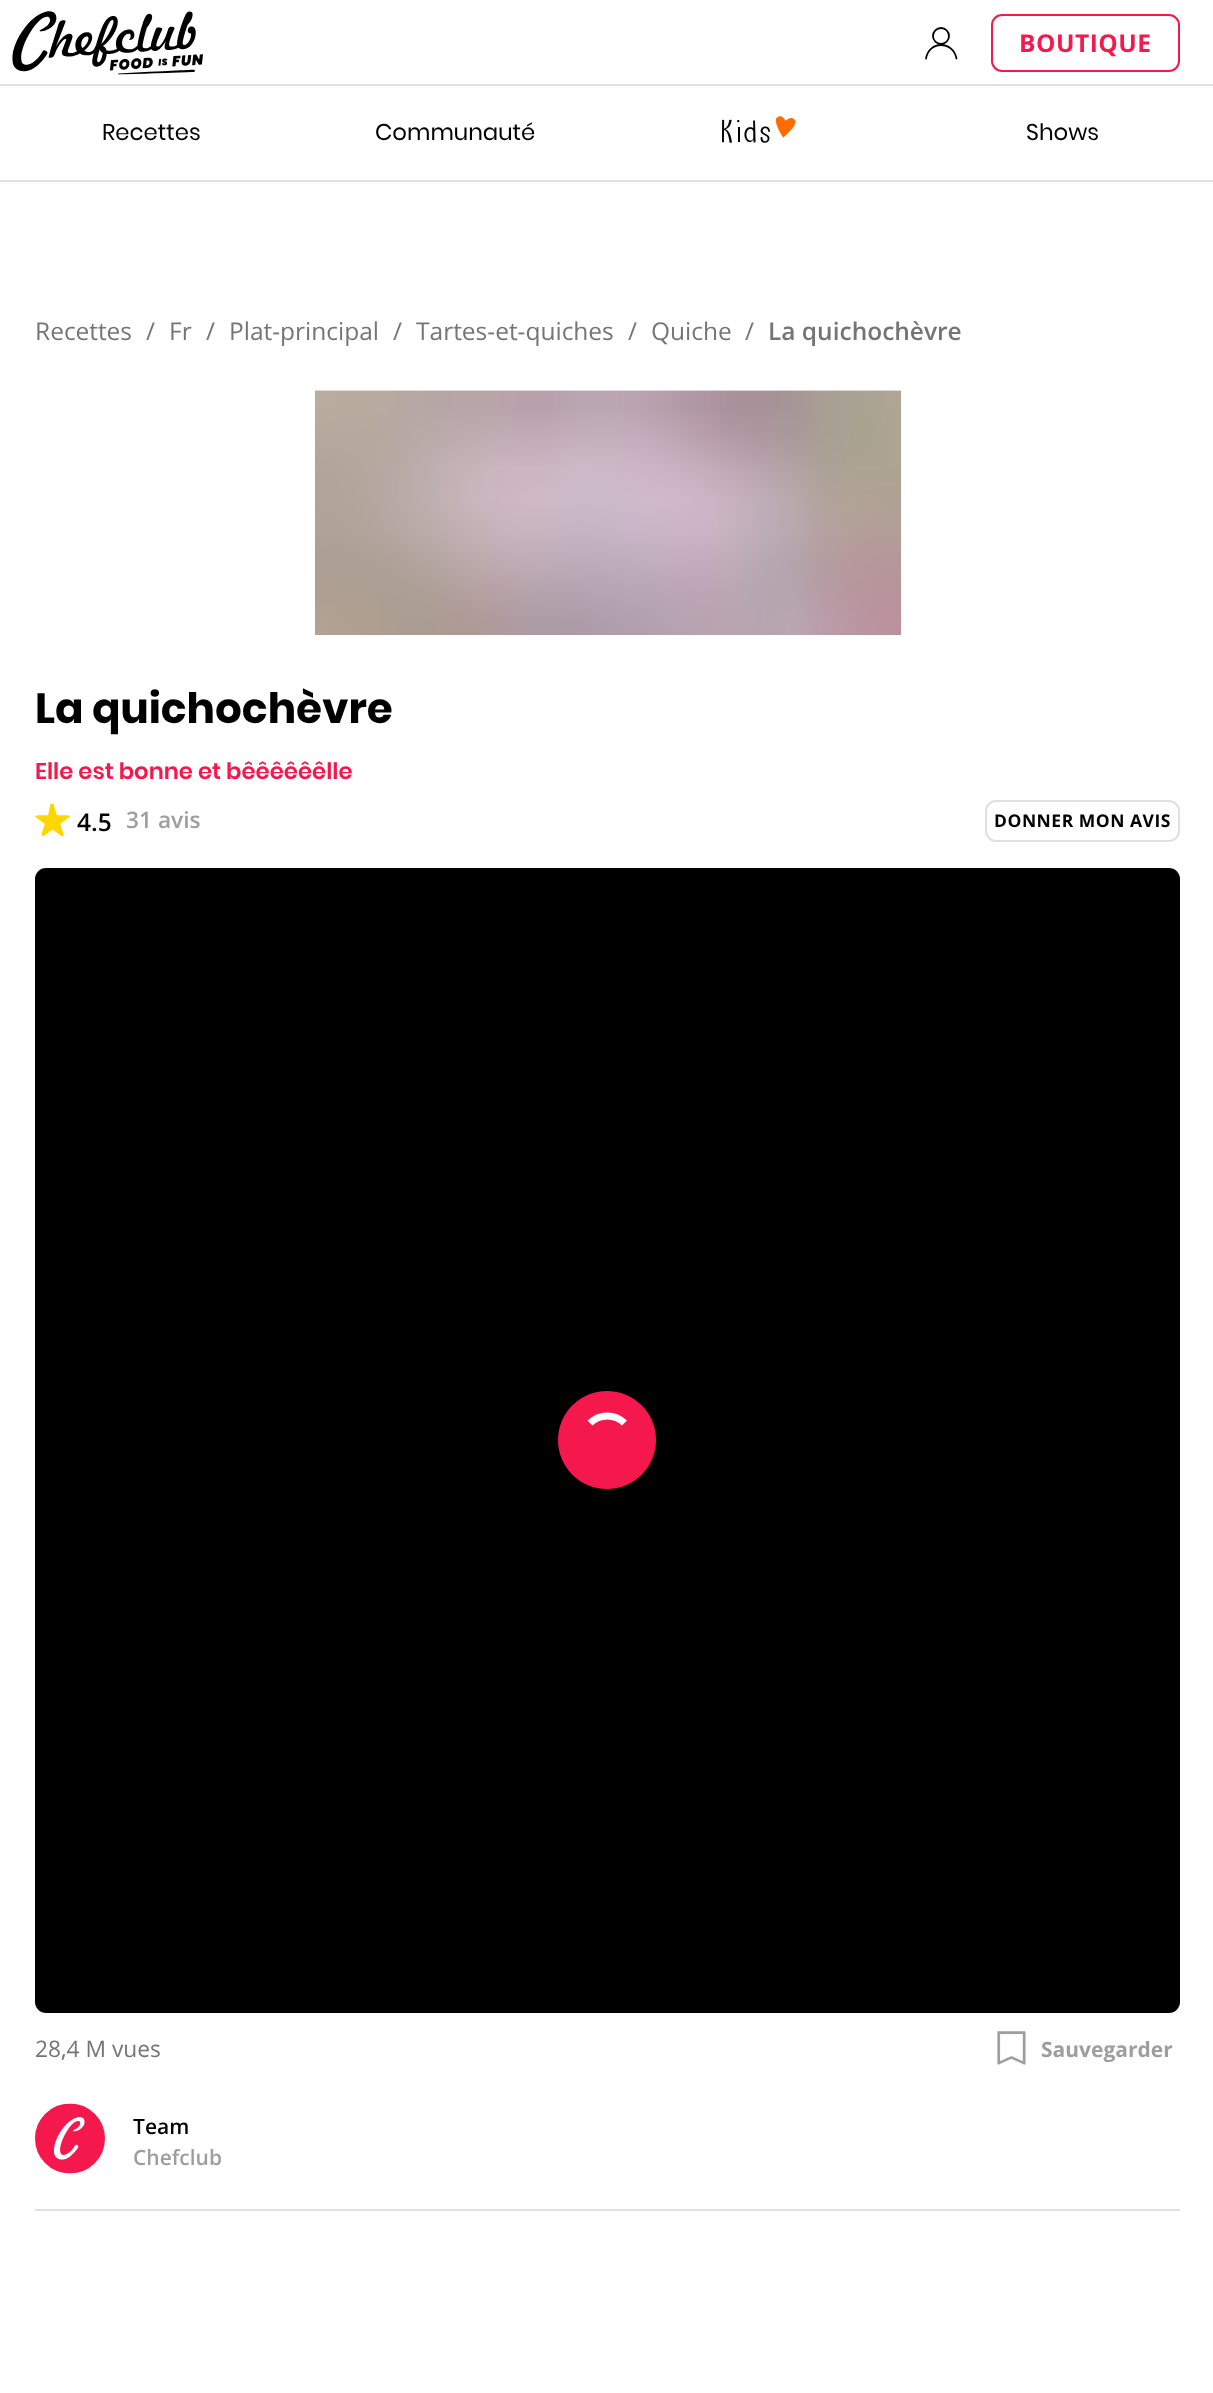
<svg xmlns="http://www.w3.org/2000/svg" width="1213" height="2393">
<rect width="100%" height="100%" fill="#fff"/>
<image x="12" y="11" width="191" height="64" href="media/1.png"/>
<circle cx="941" cy="36" r="8" fill="none" stroke="#000" stroke-width="1.8"/>
<path d="M956.5 58.5c-3.5-18-27.5-18-30.5 0" fill="none" stroke="#000" stroke-width="1.8" stroke-linecap="round"/>
<rect x="992" y="15" width="187" height="56" rx="10" fill="none" stroke="#f5184d" stroke-width="2"/>
<text x="1019" y="52" style="font-family:Open Sans;font-size:24.5px;font-weight:bold;letter-spacing:0.5px;fill:#f5184d">BOUTIQUE</text>
<rect y="84" width="1213" height="2" fill="#e0e0e0"/>
<rect y="180" width="1213" height="2" fill="#e0e0e0"/>
<text x="102" y="140" style="font-family:Poppins;font-size:22.75px;fill:#000">Recettes</text>
<text x="375" y="140" style="font-family:Poppins;font-size:22.75px;fill:#000">Communauté</text>
<image x="722" y="116" width="74" height="27" href="media/2.png"/>
<text x="1026" y="140" style="font-family:Poppins;font-size:22.75px;fill:#000">Shows</text>
<text x="35" y="340" style="font-family:Open Sans;font-size:24.5px;fill:#757575">Recettes</text>
<text x="146" y="340" style="font-family:Open Sans;font-size:24.5px;fill:#757575">/</text>
<text x="169" y="340" style="font-family:Open Sans;font-size:24.5px;fill:#757575">Fr</text>
<text x="206" y="340" style="font-family:Open Sans;font-size:24.5px;fill:#757575">/</text>
<text x="229" y="340" style="font-family:Open Sans;font-size:24.5px;fill:#757575">Plat-principal</text>
<text x="393" y="340" style="font-family:Open Sans;font-size:24.5px;fill:#757575">/</text>
<text x="416" y="340" style="font-family:Open Sans;font-size:24.5px;fill:#757575">Tartes-et-quiches</text>
<text x="628" y="340" style="font-family:Open Sans;font-size:24.5px;fill:#757575">/</text>
<text x="651" y="340" style="font-family:Open Sans;font-size:24.5px;fill:#757575">Quiche</text>
<text x="745" y="340" style="font-family:Open Sans;font-size:24.5px;fill:#757575">/</text>
<text x="768" y="340" style="font-family:Open Sans;font-size:24.5px;font-weight:600;fill:#757575">La quichochèvre</text>
<image x="315" y="390" width="587" height="245" href="media/3.png"/>
<text x="35" y="723" style="font-family:Poppins;font-size:42px;font-weight:bold;fill:#000">La quichochèvre</text>
<text x="35" y="779" style="font-family:Poppins;font-size:22.75px;font-weight:600;fill:#f5184d">Elle est bonne et bêêêêêêlle</text>
<image x="35" y="803" width="35" height="33" href="media/4.png"/>
<text x="77" y="831" style="font-family:Open Sans;font-size:24.5px;font-weight:600;fill:#000">4.5</text>
<text x="126" y="828" style="font-family:Open Sans;font-size:22.75px;font-weight:600;fill:#9e9e9e">31 avis</text>
<rect x="986" y="801" width="193" height="40" rx="10" fill="none" stroke="#e0e0e0" stroke-width="2"/>
<text x="994" y="827" style="font-family:Open Sans;font-size:17.5px;font-weight:bold;letter-spacing:0.5px;fill:#000">DONNER MON AVIS</text>
<rect x="35" y="868" width="1145" height="1145" rx="11" fill="#000"/>
<circle cx="607" cy="1440" r="49" fill="#f5184d"/>
<path d="M590 1423c9.5-9.5 25-9.5 34.5 0" fill="none" stroke="#fff" stroke-width="7"/>
<text x="35" y="2057" style="font-family:Open Sans;font-size:22.75px;fill:#757575">28,4 M vues</text>
<image x="997" y="2031" width="29" height="34" href="media/5.png"/>
<text x="1041" y="2057" style="font-family:Open Sans;font-size:21px;font-weight:bold;fill:#9e9e9e">Sauvegarder</text>
<image x="35" y="2103" width="70" height="71" href="media/6.png"/>
<text x="133" y="2134" style="font-family:Open Sans;font-size:21px;font-weight:600;fill:#000">Team</text>
<text x="133" y="2165" style="font-family:Open Sans;font-size:21px;font-weight:600;fill:#9e9e9e">Chefclub</text>
<rect x="35" y="2209" width="1145" height="2" fill="#e0e0e0"/>
</svg>
